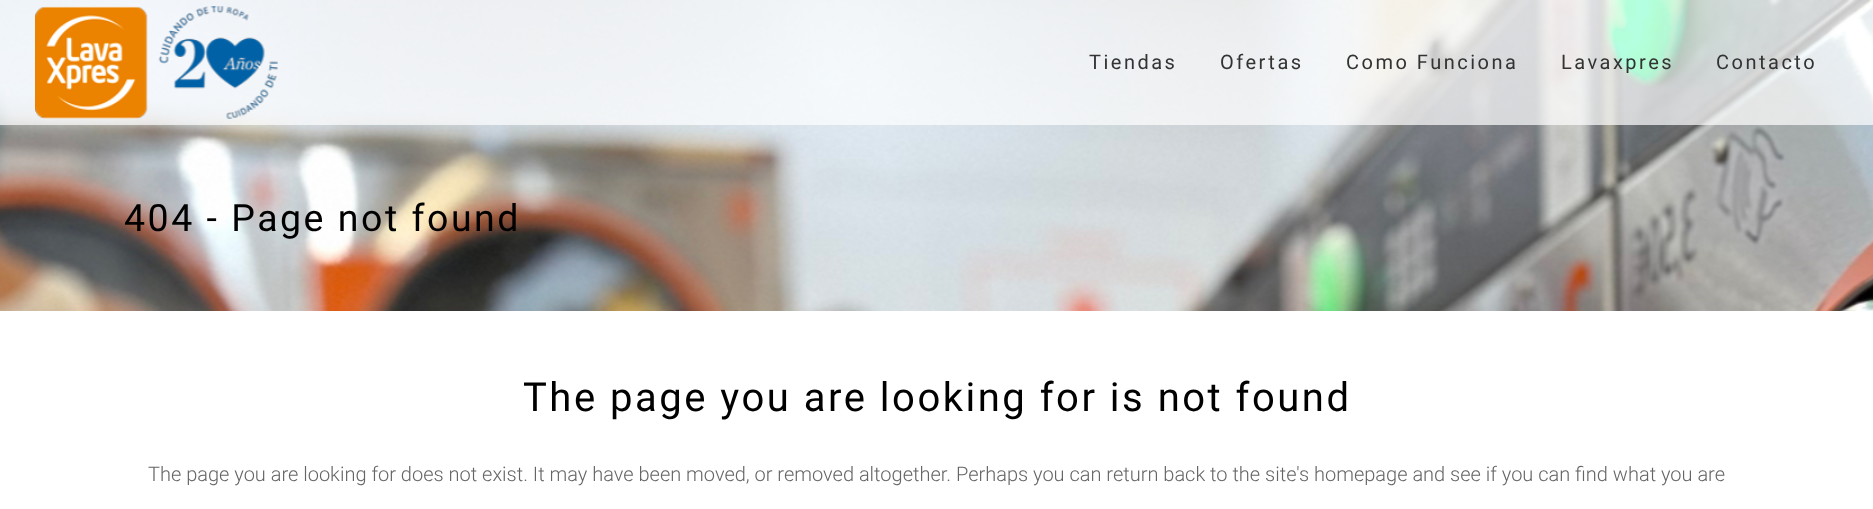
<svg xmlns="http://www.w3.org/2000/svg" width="1873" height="509">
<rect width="100%" height="100%" fill="#fff"/>
<image x="0" y="0" width="1873" height="311" href="media/2.png"/>
<rect width="1873" height="125" fill="#ffffffb3"/>
<image x="35" y="6" width="243" height="113" href="media/1.png"/>
<text x="1089" y="69" style="font-family:Roboto;font-size:20px;letter-spacing:2.5px;fill:#333">Tiendas</text>
<text x="1220" y="69" style="font-family:Roboto;font-size:20px;letter-spacing:2.5px;fill:#333">Ofertas</text>
<text x="1346" y="69" style="font-family:Roboto;font-size:20px;letter-spacing:2.5px;fill:#333">Como Funciona</text>
<text x="1561" y="69" style="font-family:Roboto;font-size:20px;letter-spacing:2.5px;fill:#333">Lavaxpres</text>
<text x="1716" y="69" style="font-family:Roboto;font-size:20px;letter-spacing:2.5px;fill:#333">Contacto</text>
<text x="124" y="231" style="font-family:Roboto;font-size:37.5px;letter-spacing:2.5px;fill:#000">404 - Page not found</text>
<text x="523" y="411" style="font-family:Roboto;font-size:40px;letter-spacing:2.5px;fill:#000">The page you are looking for is not found</text>
<text x="148" y="481" style="font-family:Roboto;font-size:20px;font-weight:300;fill:#656565">The page you are looking for does not exist. It may have been moved, or removed altogether. Perhaps you can return back to the site's homepage and see if you can find what you are</text>
</svg>
